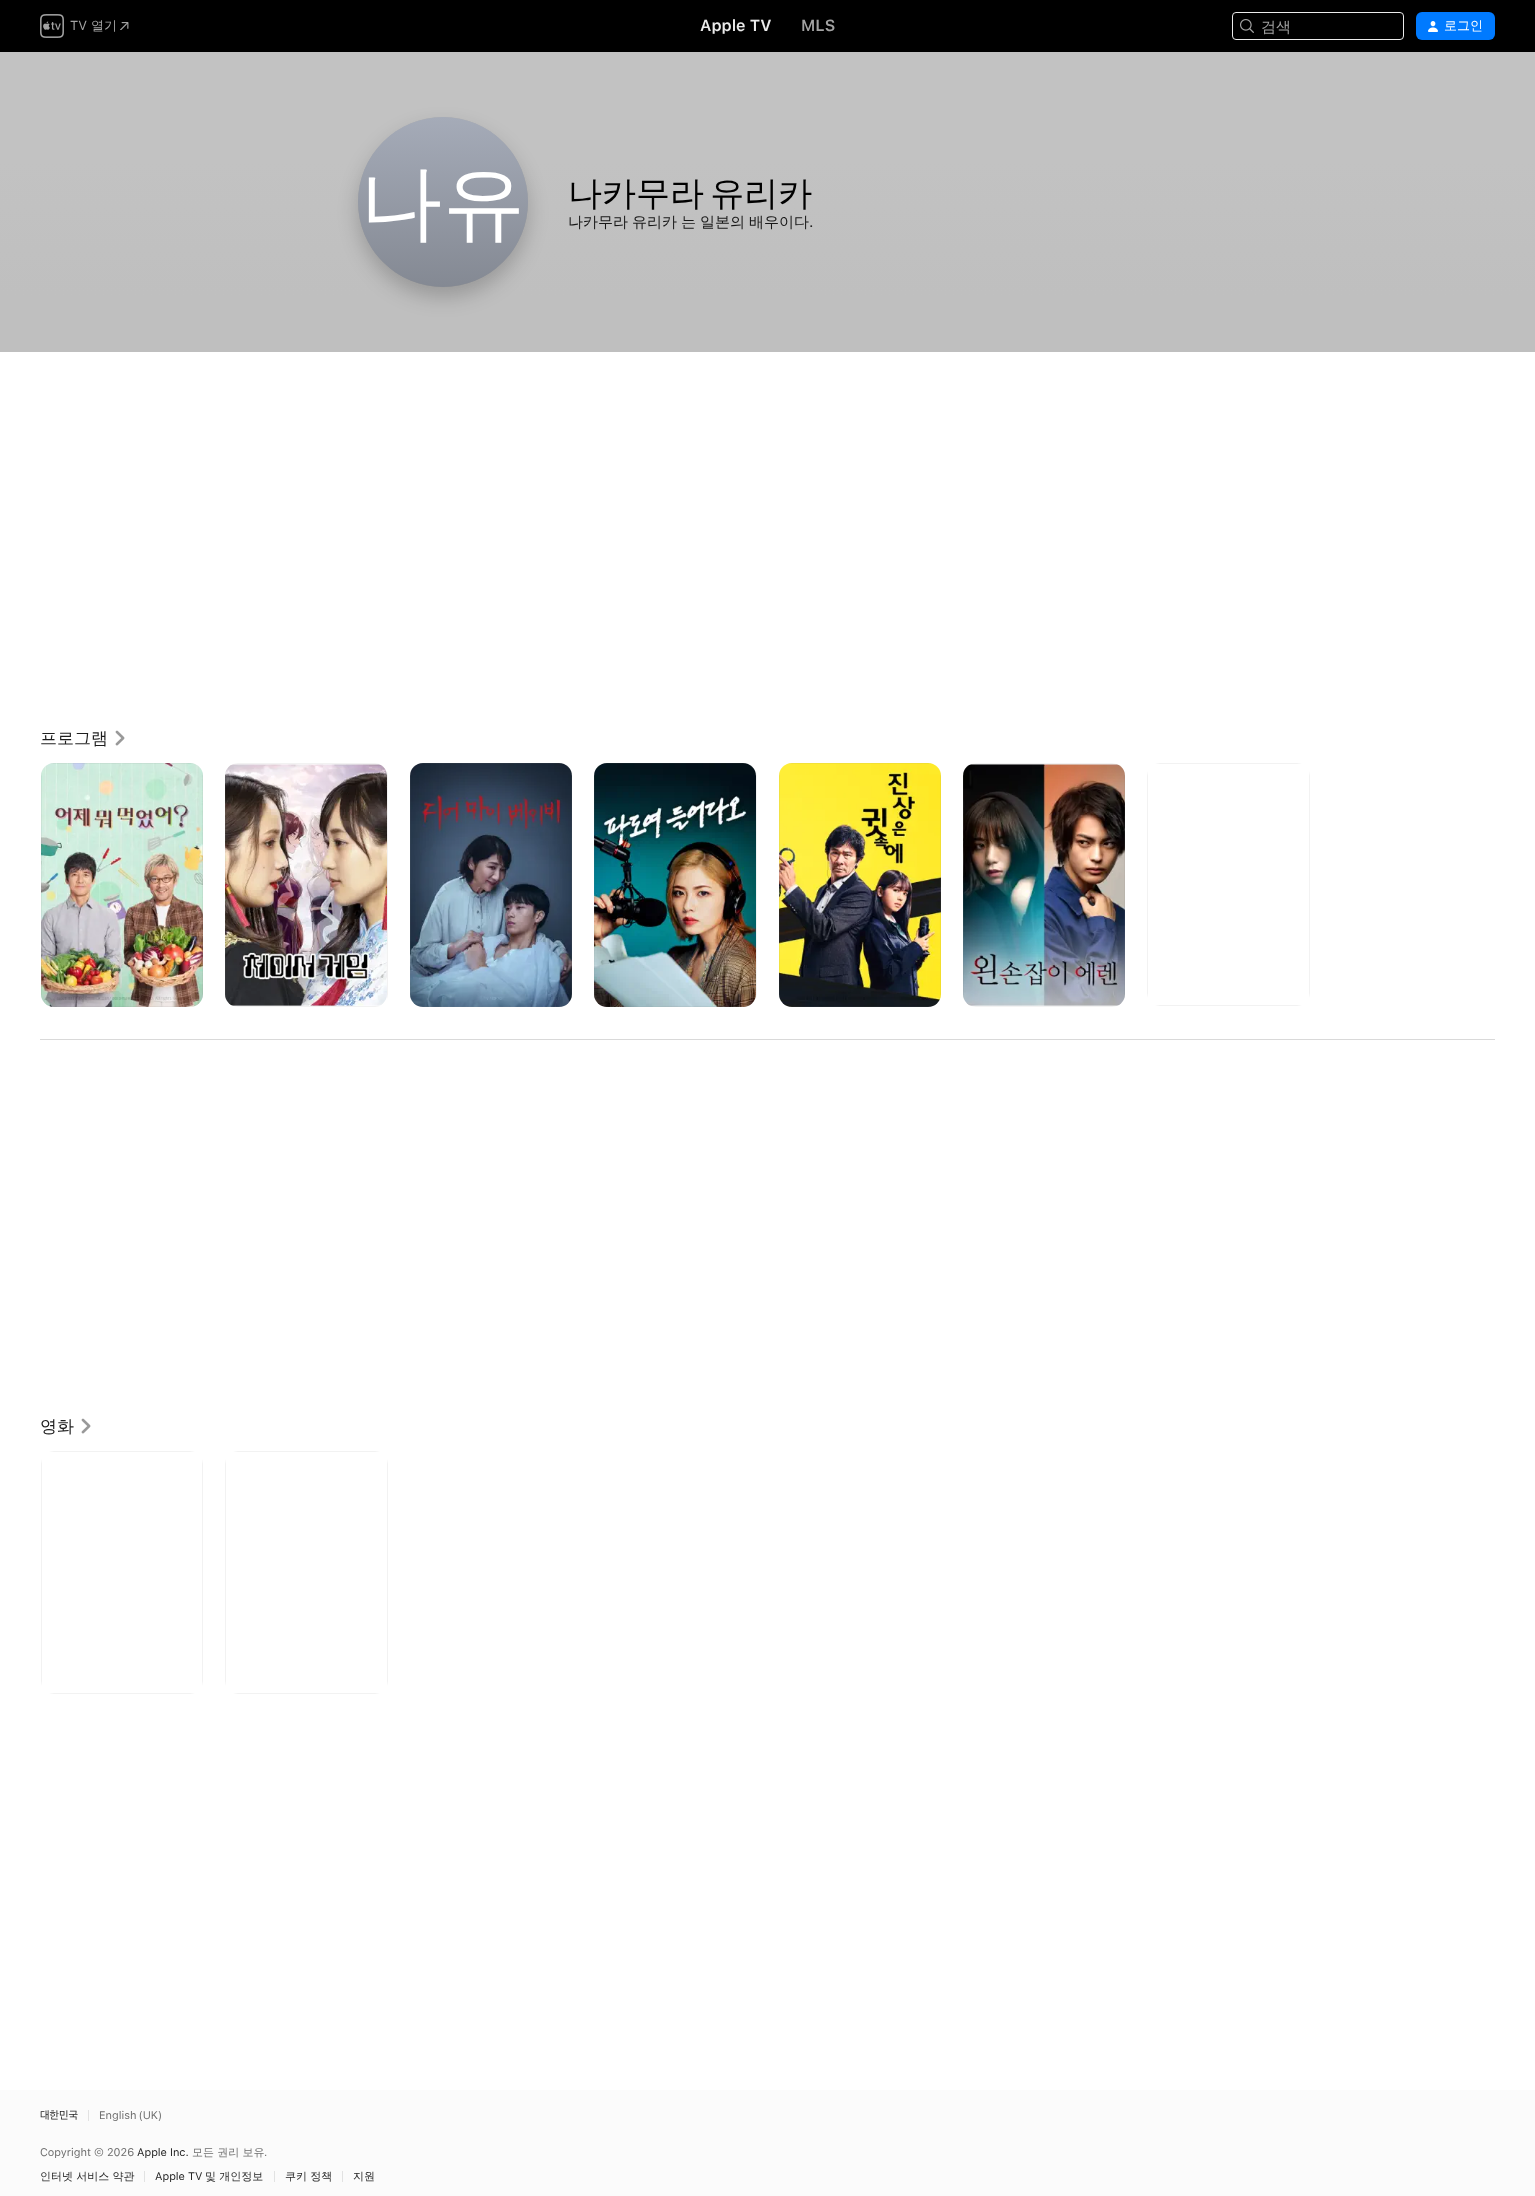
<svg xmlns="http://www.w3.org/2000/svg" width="1535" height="2196">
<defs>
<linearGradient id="g1" gradientUnits="userSpaceOnUse" x1="768" y1="162" x2="768" y2="352"><stop offset="0" stop-color="#c2c2c2"/><stop offset="0.7" stop-color="#bfbfbf"/></linearGradient>
<linearGradient id="g2" gradientUnits="userSpaceOnUse" x1="443" y1="117" x2="443" y2="287"><stop offset="0" stop-color="#a5abb8"/><stop offset="1" stop-color="#848993"/></linearGradient>
</defs>
<rect width="100%" height="100%" fill="#fff"/>
<rect width="1535" height="52" fill="#000"/>
<image x="40" y="14" width="24" height="24" href="media/1.png"/>
<text x="70" y="30" style="font-family:SF;font-size:13px;fill:#a3a3a3">TV</text>
<text x="91" y="30" style="font-family:WenQuanYi Zen Hei;font-size:13px;font-weight:500;fill:#a3a3a3">열기</text>
<image x="120" y="22" width="9" height="8" href="media/2.png"/>
<text x="700" y="31" style="font-family:SF;font-size:16px;font-weight:600;fill:#ebebeb">Apple TV</text>
<text x="801" y="31" style="font-family:SF;font-size:16px;font-weight:600;fill:#a3a3a3">MLS</text>
<rect x="1232.5" y="12.5" width="171" height="27" rx="3.5" fill="none" stroke="#ebebeb"/>
<image x="1240" y="19" width="14" height="14" href="media/3.png"/>
<text x="1261" y="32" style="font-family:WenQuanYi Zen Hei;font-size:15px;font-weight:500;fill:#a3a3a3">검색</text>
<rect x="1416" y="12" width="79" height="28" rx="6" fill="#007aff"/>
<image x="1428" y="21" width="10" height="11" href="media/4.png"/>
<text x="1444" y="30" style="font-family:WenQuanYi Zen Hei;font-size:13px;font-weight:500;fill:#fff">로그인</text>
<rect y="52" width="1535" height="110" fill="#c2c2c2"/>
<rect y="162" width="1535" height="190" fill="url(#g1)"/>
<rect x="358" y="127" width="170" height="170" rx="85" fill="#00000033" filter="blur(10px)"/>
<circle cx="443" cy="202" r="84.5" fill="none" stroke="#00000014"/>
<circle cx="443" cy="202" r="85" fill="url(#g2)"/>
<text x="360" y="231" style="font-family:WenQuanYi Zen Hei;font-size:82px;font-weight:500;letter-spacing:1px;fill:#fff">나</text>
<text x="443" y="231" style="font-family:WenQuanYi Zen Hei;font-size:82px;font-weight:500;letter-spacing:1px;fill:#fff">유</text>
<text x="568" y="205" word-spacing="-4" style="font-family:WenQuanYi Zen Hei;font-size:34px;font-weight:500;fill:#000">나카무라 유리카</text>
<text x="568" y="227" word-spacing="-0.5" style="font-family:WenQuanYi Zen Hei;font-size:15px;font-weight:500;fill:#171717">나카무라 유리카 는 일본의 배우이다</text>
<text x="809" y="227" style="font-family:SF;font-size:15px;fill:#171717">.</text>
<text x="40" y="744" style="font-family:WenQuanYi Zen Hei;font-size:17px;font-weight:500;fill:#1e1e1e">프로그램</text>
<image x="115" y="730" width="10" height="16" href="media/5.png"/>
<image x="41" y="763" width="162" height="244" href="media/6.png"/>
<path d="M41 776v218l1 5v-228zm13-13l-5 1h146l-5-1zm149 13l-1-5v228l1-5zm-13 231l5-1h-146l5 1z" fill="#8080801a" fill-rule="evenodd"/>
<image x="225" y="764" width="162" height="242" href="media/7.png"/>
<path d="M225 776v218l1 5v-228zm13-13l-5 1h147l-5-1zm150 13l-1-5v228l1-5zm-13 231l5-1h-147l5 1z" fill="#8080801a" fill-rule="evenodd"/>
<image x="410" y="763" width="162" height="244" href="media/8.png"/>
<path d="M410 776v218l1 5v-228zm13-13l-5 1h146l-5-1zm149 13l-1-5v228l1-5zm-13 231l5-1h-146l5 1z" fill="#8080801a" fill-rule="evenodd"/>
<image x="594" y="763" width="162" height="244" href="media/9.png"/>
<path d="M594 776v218l1 5v-228zm13-13l-5 1h147l-5-1zm150 13l-1-5v228l1-5zm-13 231l5-1h-147l5 1z" fill="#8080801a" fill-rule="evenodd"/>
<image x="779" y="763" width="162" height="244" href="media/10.png"/>
<path d="M779 776v218l1 5v-228zm13-13l-5 1h146l-5-1zm149 13l-1-5v228l1-5zm-13 231l5-1h-146l5 1z" fill="#8080801a" fill-rule="evenodd"/>
<image x="963" y="764" width="162" height="242" href="media/11.png"/>
<path d="M963 776v218l1 5v-228zm13-13l-5 1h146l-5-1zm149 13l-1-5v228l1-5zm-13 231l5-1h-146l5 1z" fill="#8080801a" fill-rule="evenodd"/>
<path d="M1147 776v217l1 5v-227zm13-13l-5 1h147l-5-1zm150 13l-1-5v227l1-5zm-13 230l5-1h-147l5 1z" fill="#f2f2f2" fill-rule="evenodd"/>
<rect x="40" y="1039" width="1455" height="1" fill="#d9d9d9"/>
<text x="40" y="1432" style="font-family:WenQuanYi Zen Hei;font-size:17px;font-weight:500;fill:#1e1e1e">영화</text>
<image x="81" y="1418" width="10" height="16" href="media/5.png"/>
<path d="M41 1464v217l1 5v-227zm13-13l-5 1h146l-5-1zm149 13l-1-5v227l1-5zm-13 230l5-1h-146l5 1z" fill="#f2f2f2" fill-rule="evenodd"/>
<path d="M225 1464v217l1 5v-227zm13-13l-5 1h147l-5-1zm150 13l-1-5v227l1-5zm-13 230l5-1h-147l5 1z" fill="#f2f2f2" fill-rule="evenodd"/>
<rect y="2090" width="1535" height="106" fill="#fbfbfb"/>
<text x="40" y="2119" style="font-family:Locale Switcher;font-size:11px;fill:#1e1e1e">대한민국</text>
<rect x="88" y="2110" width="1" height="11" fill="#e2e2e2"/>
<text x="99" y="2119" word-spacing="-1" style="font-family:SF;font-size:11px;fill:#6e6e6e">English (UK)</text>
<text x="40" y="2156" style="font-family:SF;font-size:11px;fill:#6e6e6e">Copyright © 2026</text>
<text x="137" y="2156" style="font-family:SF;font-size:11px;fill:#1e1e1e">Apple Inc.</text>
<text x="192" y="2156" style="font-family:WenQuanYi Zen Hei;font-size:11px;font-weight:500;fill:#6e6e6e">모든 권리 보유</text>
<text x="264" y="2156" style="font-family:SF;font-size:11px;fill:#6e6e6e">.</text>
<text x="40" y="2180" style="font-family:WenQuanYi Zen Hei;font-size:11px;font-weight:500;fill:#1e1e1e">인터넷 서비스 약관</text>
<rect x="144" y="2171" width="1" height="11" fill="#e2e2e2"/>
<text x="155" y="2180" style="font-family:SF;font-size:11px;fill:#1e1e1e">Apple TV</text>
<text x="205" y="2180" style="font-family:WenQuanYi Zen Hei;font-size:11px;font-weight:500;fill:#1e1e1e">및 개인정보</text>
<rect x="274" y="2171" width="1" height="11" fill="#e2e2e2"/>
<text x="285" y="2180" style="font-family:WenQuanYi Zen Hei;font-size:11px;font-weight:500;fill:#1e1e1e">쿠키 정책</text>
<rect x="342" y="2171" width="1" height="11" fill="#e2e2e2"/>
<text x="353" y="2180" style="font-family:WenQuanYi Zen Hei;font-size:11px;font-weight:500;fill:#1e1e1e">지원</text>
</svg>
